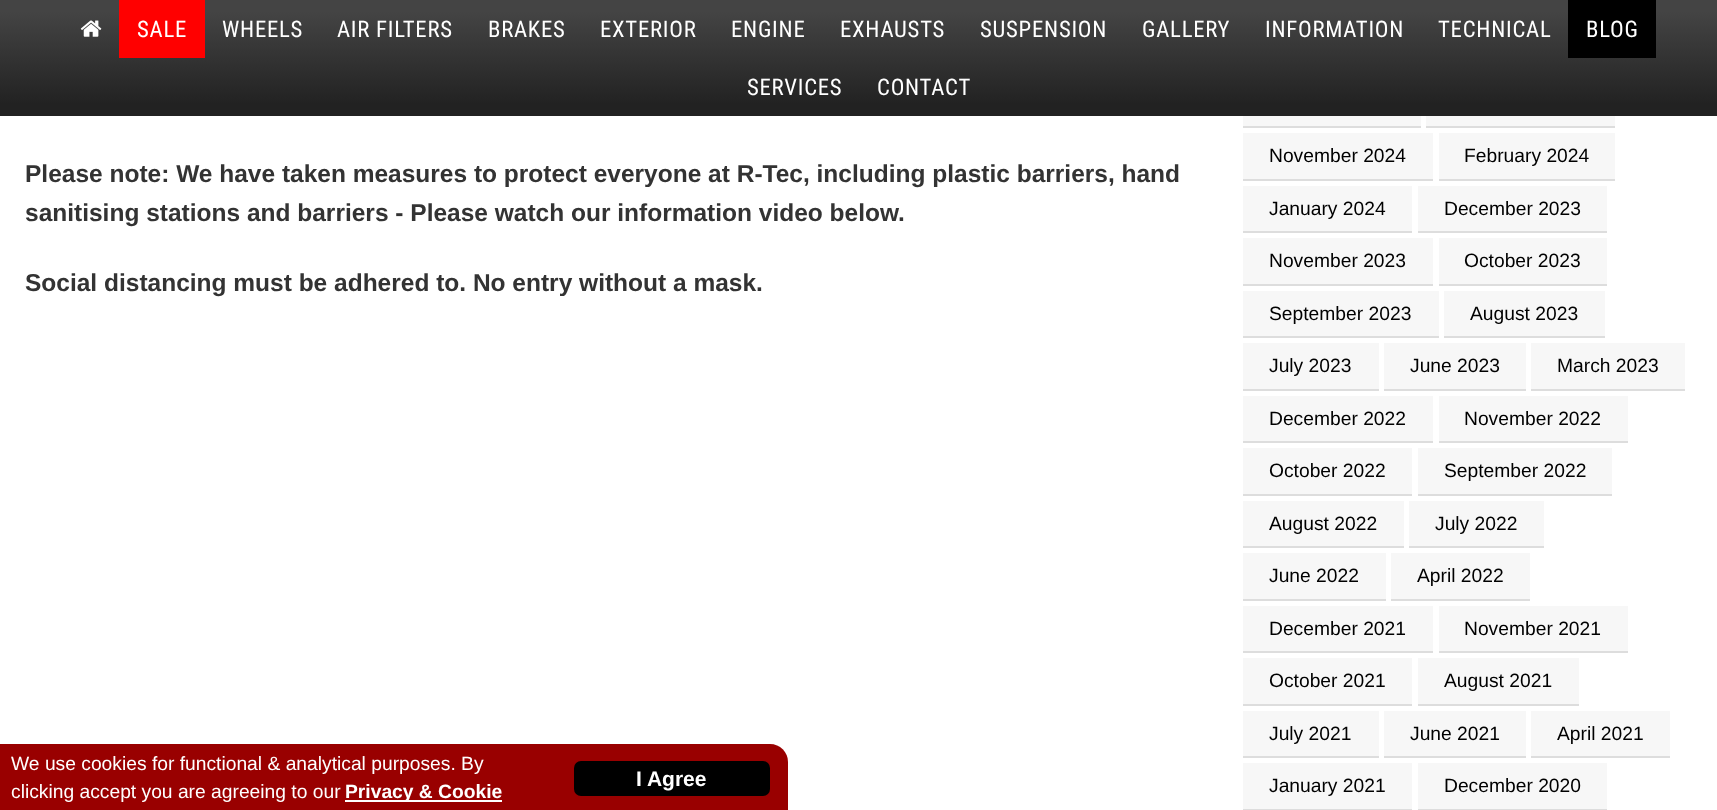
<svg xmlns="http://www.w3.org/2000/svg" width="1717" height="810">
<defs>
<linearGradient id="g1" gradientUnits="userSpaceOnUse" x1="859" y1="0" x2="859" y2="116"><stop offset="0.1" stop-color="#444"/><stop offset="0.9" stop-color="#222"/></linearGradient>
</defs>
<rect width="100%" height="100%" fill="#fff"/>
<rect width="1717" height="116" fill="url(#g1)"/>
<image x="80" y="20" width="22" height="17" href="media/1.png"/>
<rect x="119" width="86" height="58" fill="#f00"/>
<text x="137" y="37" style="font-family:Roboto Condensed;font-size:22.75px;letter-spacing:0.75px;fill:#fff">SALE</text>
<text x="222" y="37" style="font-family:Roboto Condensed;font-size:22.75px;letter-spacing:0.75px;fill:#fff">WHEELS</text>
<text x="337" y="37" style="font-family:Roboto Condensed;font-size:22.75px;letter-spacing:0.75px;fill:#fff">AIR FILTERS</text>
<text x="488" y="37" style="font-family:Roboto Condensed;font-size:22.75px;letter-spacing:0.75px;fill:#fff">BRAKES</text>
<text x="600" y="37" style="font-family:Roboto Condensed;font-size:22.75px;letter-spacing:0.75px;fill:#fff">EXTERIOR</text>
<text x="731" y="37" style="font-family:Roboto Condensed;font-size:22.75px;letter-spacing:0.75px;fill:#fff">ENGINE</text>
<text x="840" y="37" style="font-family:Roboto Condensed;font-size:22.75px;letter-spacing:0.75px;fill:#fff">EXHAUSTS</text>
<text x="980" y="37" style="font-family:Roboto Condensed;font-size:22.75px;letter-spacing:0.75px;fill:#fff">SUSPENSION</text>
<text x="1142" y="37" style="font-family:Roboto Condensed;font-size:22.75px;letter-spacing:0.75px;fill:#fff">GALLERY</text>
<text x="1265" y="37" style="font-family:Roboto Condensed;font-size:22.75px;letter-spacing:0.75px;fill:#fff">INFORMATION</text>
<text x="1438" y="37" style="font-family:Roboto Condensed;font-size:22.75px;letter-spacing:0.75px;fill:#fff">TECHNICAL</text>
<rect x="1568" width="88" height="58" fill="#000"/>
<text x="1586" y="37" style="font-family:Roboto Condensed;font-size:22.75px;letter-spacing:0.75px;fill:#fff">BLOG</text>
<text x="747" y="95" style="font-family:Roboto Condensed;font-size:22.75px;letter-spacing:0.75px;fill:#fff">SERVICES</text>
<text x="877" y="95" style="font-family:Roboto Condensed;font-size:22.75px;letter-spacing:0.75px;fill:#fff">CONTACT</text>
<text x="25" y="182" style="font-family:Liberation Sans;font-size:24.5px;font-weight:bold;fill:#333">Please note: We have taken measures to protect everyone at R-Tec, including plastic barriers, hand</text>
<text x="25" y="221" style="font-family:Liberation Sans;font-size:24.5px;font-weight:bold;fill:#333">sanitising stations and barriers - Please watch our information video below.</text>
<text x="25" y="291" style="font-family:Liberation Sans;font-size:24.5px;font-weight:bold;fill:#333">Social distancing must be adhered to. No entry without a mask.</text>
<rect x="1243" y="116" width="178" height="10" fill="#f7f7f7"/>
<rect x="1243" y="126" width="178" height="2" fill="#ddd"/>
<rect x="1426" y="116" width="189" height="10" fill="#f7f7f7"/>
<rect x="1426" y="126" width="189" height="2" fill="#ddd"/>
<rect x="1243" y="133" width="190" height="46" fill="#f7f7f7"/>
<rect x="1243" y="179" width="190" height="2" fill="#ddd"/>
<text x="1269" y="162" style="font-family:Liberation Sans;font-size:19.25px;fill:#000">November 2024</text>
<rect x="1439" y="133" width="176" height="46" fill="#f7f7f7"/>
<rect x="1439" y="179" width="176" height="2" fill="#ddd"/>
<text x="1464" y="162" style="font-family:Liberation Sans;font-size:19.25px;fill:#000">February 2024</text>
<rect x="1243" y="186" width="169" height="45" fill="#f7f7f7"/>
<rect x="1243" y="231" width="169" height="2" fill="#ddd"/>
<text x="1269" y="215" style="font-family:Liberation Sans;font-size:19.25px;fill:#000">January 2024</text>
<rect x="1418" y="186" width="189" height="45" fill="#f7f7f7"/>
<rect x="1418" y="231" width="189" height="2" fill="#ddd"/>
<text x="1444" y="215" style="font-family:Liberation Sans;font-size:19.25px;fill:#000">December 2023</text>
<rect x="1243" y="238" width="190" height="46" fill="#f7f7f7"/>
<rect x="1243" y="284" width="190" height="2" fill="#ddd"/>
<text x="1269" y="267" style="font-family:Liberation Sans;font-size:19.25px;fill:#000">November 2023</text>
<rect x="1439" y="238" width="168" height="46" fill="#f7f7f7"/>
<rect x="1439" y="284" width="168" height="2" fill="#ddd"/>
<text x="1464" y="267" style="font-family:Liberation Sans;font-size:19.25px;fill:#000">October 2023</text>
<rect x="1243" y="291" width="196" height="45" fill="#f7f7f7"/>
<rect x="1243" y="336" width="196" height="2" fill="#ddd"/>
<text x="1269" y="320" style="font-family:Liberation Sans;font-size:19.25px;fill:#000">September 2023</text>
<rect x="1444" y="291" width="161" height="45" fill="#f7f7f7"/>
<rect x="1444" y="336" width="161" height="2" fill="#ddd"/>
<text x="1470" y="320" style="font-family:Liberation Sans;font-size:19.25px;fill:#000">August 2023</text>
<rect x="1243" y="343" width="136" height="46" fill="#f7f7f7"/>
<rect x="1243" y="389" width="136" height="2" fill="#ddd"/>
<text x="1269" y="372" style="font-family:Liberation Sans;font-size:19.25px;fill:#000">July 2023</text>
<rect x="1384" y="343" width="142" height="46" fill="#f7f7f7"/>
<rect x="1384" y="389" width="142" height="2" fill="#ddd"/>
<text x="1410" y="372" style="font-family:Liberation Sans;font-size:19.25px;fill:#000">June 2023</text>
<rect x="1531" y="343" width="154" height="46" fill="#f7f7f7"/>
<rect x="1531" y="389" width="154" height="2" fill="#ddd"/>
<text x="1557" y="372" style="font-family:Liberation Sans;font-size:19.25px;fill:#000">March 2023</text>
<rect x="1243" y="396" width="190" height="45" fill="#f7f7f7"/>
<rect x="1243" y="441" width="190" height="2" fill="#ddd"/>
<text x="1269" y="425" style="font-family:Liberation Sans;font-size:19.25px;fill:#000">December 2022</text>
<rect x="1439" y="396" width="189" height="45" fill="#f7f7f7"/>
<rect x="1439" y="441" width="189" height="2" fill="#ddd"/>
<text x="1464" y="425" style="font-family:Liberation Sans;font-size:19.25px;fill:#000">November 2022</text>
<rect x="1243" y="448" width="169" height="46" fill="#f7f7f7"/>
<rect x="1243" y="494" width="169" height="2" fill="#ddd"/>
<text x="1269" y="477" style="font-family:Liberation Sans;font-size:19.25px;fill:#000">October 2022</text>
<rect x="1418" y="448" width="194" height="46" fill="#f7f7f7"/>
<rect x="1418" y="494" width="194" height="2" fill="#ddd"/>
<text x="1444" y="477" style="font-family:Liberation Sans;font-size:19.25px;fill:#000">September 2022</text>
<rect x="1243" y="501" width="161" height="45" fill="#f7f7f7"/>
<rect x="1243" y="546" width="161" height="2" fill="#ddd"/>
<text x="1269" y="530" style="font-family:Liberation Sans;font-size:19.25px;fill:#000">August 2022</text>
<rect x="1409" y="501" width="135" height="45" fill="#f7f7f7"/>
<rect x="1409" y="546" width="135" height="2" fill="#ddd"/>
<text x="1435" y="530" style="font-family:Liberation Sans;font-size:19.25px;fill:#000">July 2022</text>
<rect x="1243" y="553" width="143" height="46" fill="#f7f7f7"/>
<rect x="1243" y="599" width="143" height="2" fill="#ddd"/>
<text x="1269" y="582" style="font-family:Liberation Sans;font-size:19.25px;fill:#000">June 2022</text>
<rect x="1391" y="553" width="139" height="46" fill="#f7f7f7"/>
<rect x="1391" y="599" width="139" height="2" fill="#ddd"/>
<text x="1417" y="582" style="font-family:Liberation Sans;font-size:19.25px;fill:#000">April 2022</text>
<rect x="1243" y="606" width="190" height="45" fill="#f7f7f7"/>
<rect x="1243" y="651" width="190" height="2" fill="#ddd"/>
<text x="1269" y="635" style="font-family:Liberation Sans;font-size:19.25px;fill:#000">December 2021</text>
<rect x="1439" y="606" width="189" height="45" fill="#f7f7f7"/>
<rect x="1439" y="651" width="189" height="2" fill="#ddd"/>
<text x="1464" y="635" style="font-family:Liberation Sans;font-size:19.25px;fill:#000">November 2021</text>
<rect x="1243" y="658" width="169" height="46" fill="#f7f7f7"/>
<rect x="1243" y="704" width="169" height="2" fill="#ddd"/>
<text x="1269" y="687" style="font-family:Liberation Sans;font-size:19.25px;fill:#000">October 2021</text>
<rect x="1418" y="658" width="161" height="46" fill="#f7f7f7"/>
<rect x="1418" y="704" width="161" height="2" fill="#ddd"/>
<text x="1444" y="687" style="font-family:Liberation Sans;font-size:19.25px;fill:#000">August 2021</text>
<rect x="1243" y="711" width="136" height="45" fill="#f7f7f7"/>
<rect x="1243" y="756" width="136" height="2" fill="#ddd"/>
<text x="1269" y="740" style="font-family:Liberation Sans;font-size:19.25px;fill:#000">July 2021</text>
<rect x="1384" y="711" width="142" height="45" fill="#f7f7f7"/>
<rect x="1384" y="756" width="142" height="2" fill="#ddd"/>
<text x="1410" y="740" style="font-family:Liberation Sans;font-size:19.25px;fill:#000">June 2021</text>
<rect x="1531" y="711" width="139" height="45" fill="#f7f7f7"/>
<rect x="1531" y="756" width="139" height="2" fill="#ddd"/>
<text x="1557" y="740" style="font-family:Liberation Sans;font-size:19.25px;fill:#000">April 2021</text>
<rect x="1243" y="763" width="169" height="46" fill="#f7f7f7"/>
<rect x="1243" y="809" width="169" height="1" fill="#ddd"/>
<text x="1269" y="792" style="font-family:Liberation Sans;font-size:19.25px;fill:#000">January 2021</text>
<rect x="1418" y="763" width="189" height="46" fill="#f7f7f7"/>
<rect x="1418" y="809" width="189" height="1" fill="#ddd"/>
<text x="1444" y="792" style="font-family:Liberation Sans;font-size:19.25px;fill:#000">December 2020</text>
<path d="M0 744h770c10 0 18 8 18 18v48h-788z" fill="#900"/>
<text x="11" y="770" style="font-family:Liberation Sans;font-size:19.25px;fill:#fff">We use cookies for functional &amp; analytical purposes. By</text>
<text x="11" y="798" style="font-family:Liberation Sans;font-size:19.25px;fill:#fff">clicking accept you are agreeing to our</text>
<rect x="345" y="800" width="157" height="2" fill="#fff"/>
<text x="345" y="798" style="font-family:Liberation Sans;font-size:19.25px;font-weight:bold;fill:#fff">Privacy &amp; Cookie</text>
<rect x="574" y="761" width="196" height="35" rx="7" fill="#000"/>
<text x="636" y="786" style="font-family:Liberation Sans;font-size:21px;font-weight:bold;fill:#fff">I Agree</text>
</svg>
